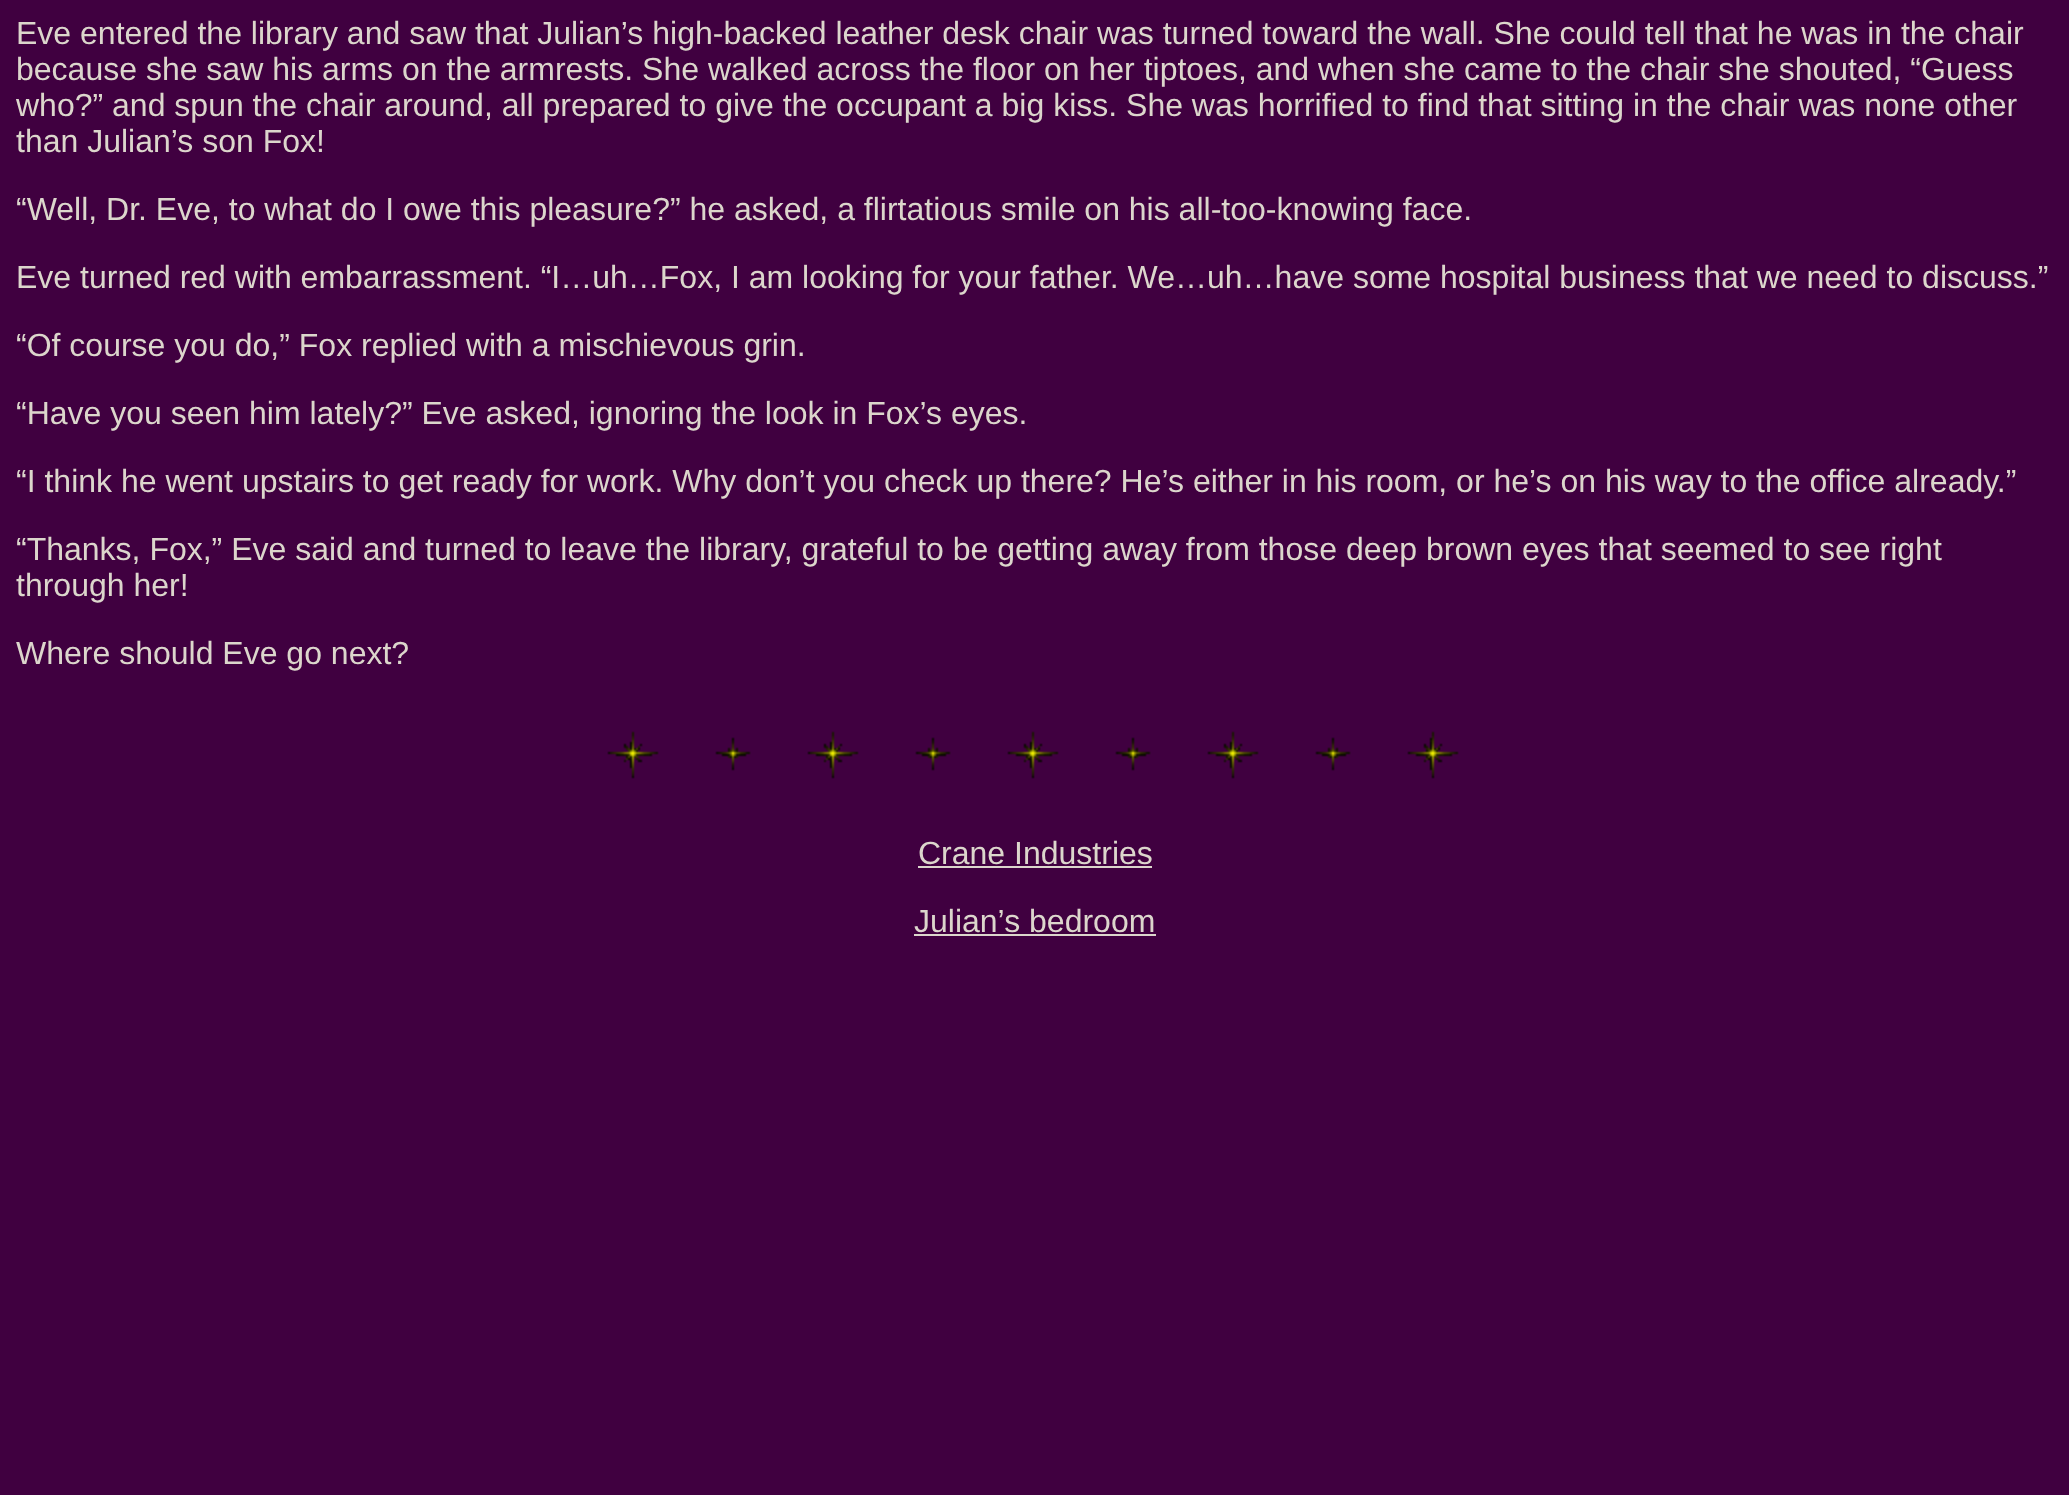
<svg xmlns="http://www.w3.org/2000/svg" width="2069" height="1495">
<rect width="100%" height="100%" fill="#400040"/>
<text x="16" y="44" style="font-family:Liberation Sans;font-size:32px;fill:#dcd6cc">Eve entered the library and saw that Julian’s high-backed leather desk chair was turned toward the wall. She could tell that he was in the chair</text>
<text x="16" y="80" style="font-family:Liberation Sans;font-size:32px;fill:#dcd6cc">because she saw his arms on the armrests. She walked across the floor on her tiptoes, and when she came to the chair she shouted, “Guess</text>
<text x="16" y="116" style="font-family:Liberation Sans;font-size:32px;fill:#dcd6cc">who?” and spun the chair around, all prepared to give the occupant a big kiss. She was horrified to find that sitting in the chair was none other</text>
<text x="16" y="152" style="font-family:Liberation Sans;font-size:32px;fill:#dcd6cc">than Julian’s son Fox!</text>
<text x="16" y="220" style="font-family:Liberation Sans;font-size:32px;fill:#dcd6cc">“Well, Dr. Eve, to what do I owe this pleasure?” he asked, a flirtatious smile on his all-too-knowing face.</text>
<text x="16" y="288" style="font-family:Liberation Sans;font-size:32px;fill:#dcd6cc">Eve turned red with embarrassment. “I…uh…Fox, I am looking for your father. We…uh…have some hospital business that we need to discuss.”</text>
<text x="16" y="356" style="font-family:Liberation Sans;font-size:32px;fill:#dcd6cc">“Of course you do,” Fox replied with a mischievous grin.</text>
<text x="16" y="424" style="font-family:Liberation Sans;font-size:32px;fill:#dcd6cc">“Have you seen him lately?” Eve asked, ignoring the look in Fox’s eyes.</text>
<text x="16" y="492" style="font-family:Liberation Sans;font-size:32px;fill:#dcd6cc">“I think he went upstairs to get ready for work. Why don’t you check up there? He’s either in his room, or he’s on his way to the office already.”</text>
<text x="16" y="560" style="font-family:Liberation Sans;font-size:32px;fill:#dcd6cc">“Thanks, Fox,” Eve said and turned to leave the library, grateful to be getting away from those deep brown eyes that seemed to see right</text>
<text x="16" y="596" style="font-family:Liberation Sans;font-size:32px;fill:#dcd6cc">through her!</text>
<text x="16" y="664" style="font-family:Liberation Sans;font-size:32px;fill:#dcd6cc">Where should Eve go next?</text>
<image x="607" y="731" width="852" height="48" href="media/1.png"/>
<text x="918" y="864" style="font-family:Liberation Sans;font-size:32px;fill:#dcd6cc">Crane Industries</text>
<rect x="918" y="866" width="234" height="2" fill="#dcd6cc"/>
<text x="914" y="932" style="font-family:Liberation Sans;font-size:32px;fill:#dcd6cc">Julian’s bedroom</text>
<rect x="914" y="934" width="242" height="2" fill="#dcd6cc"/>
</svg>
